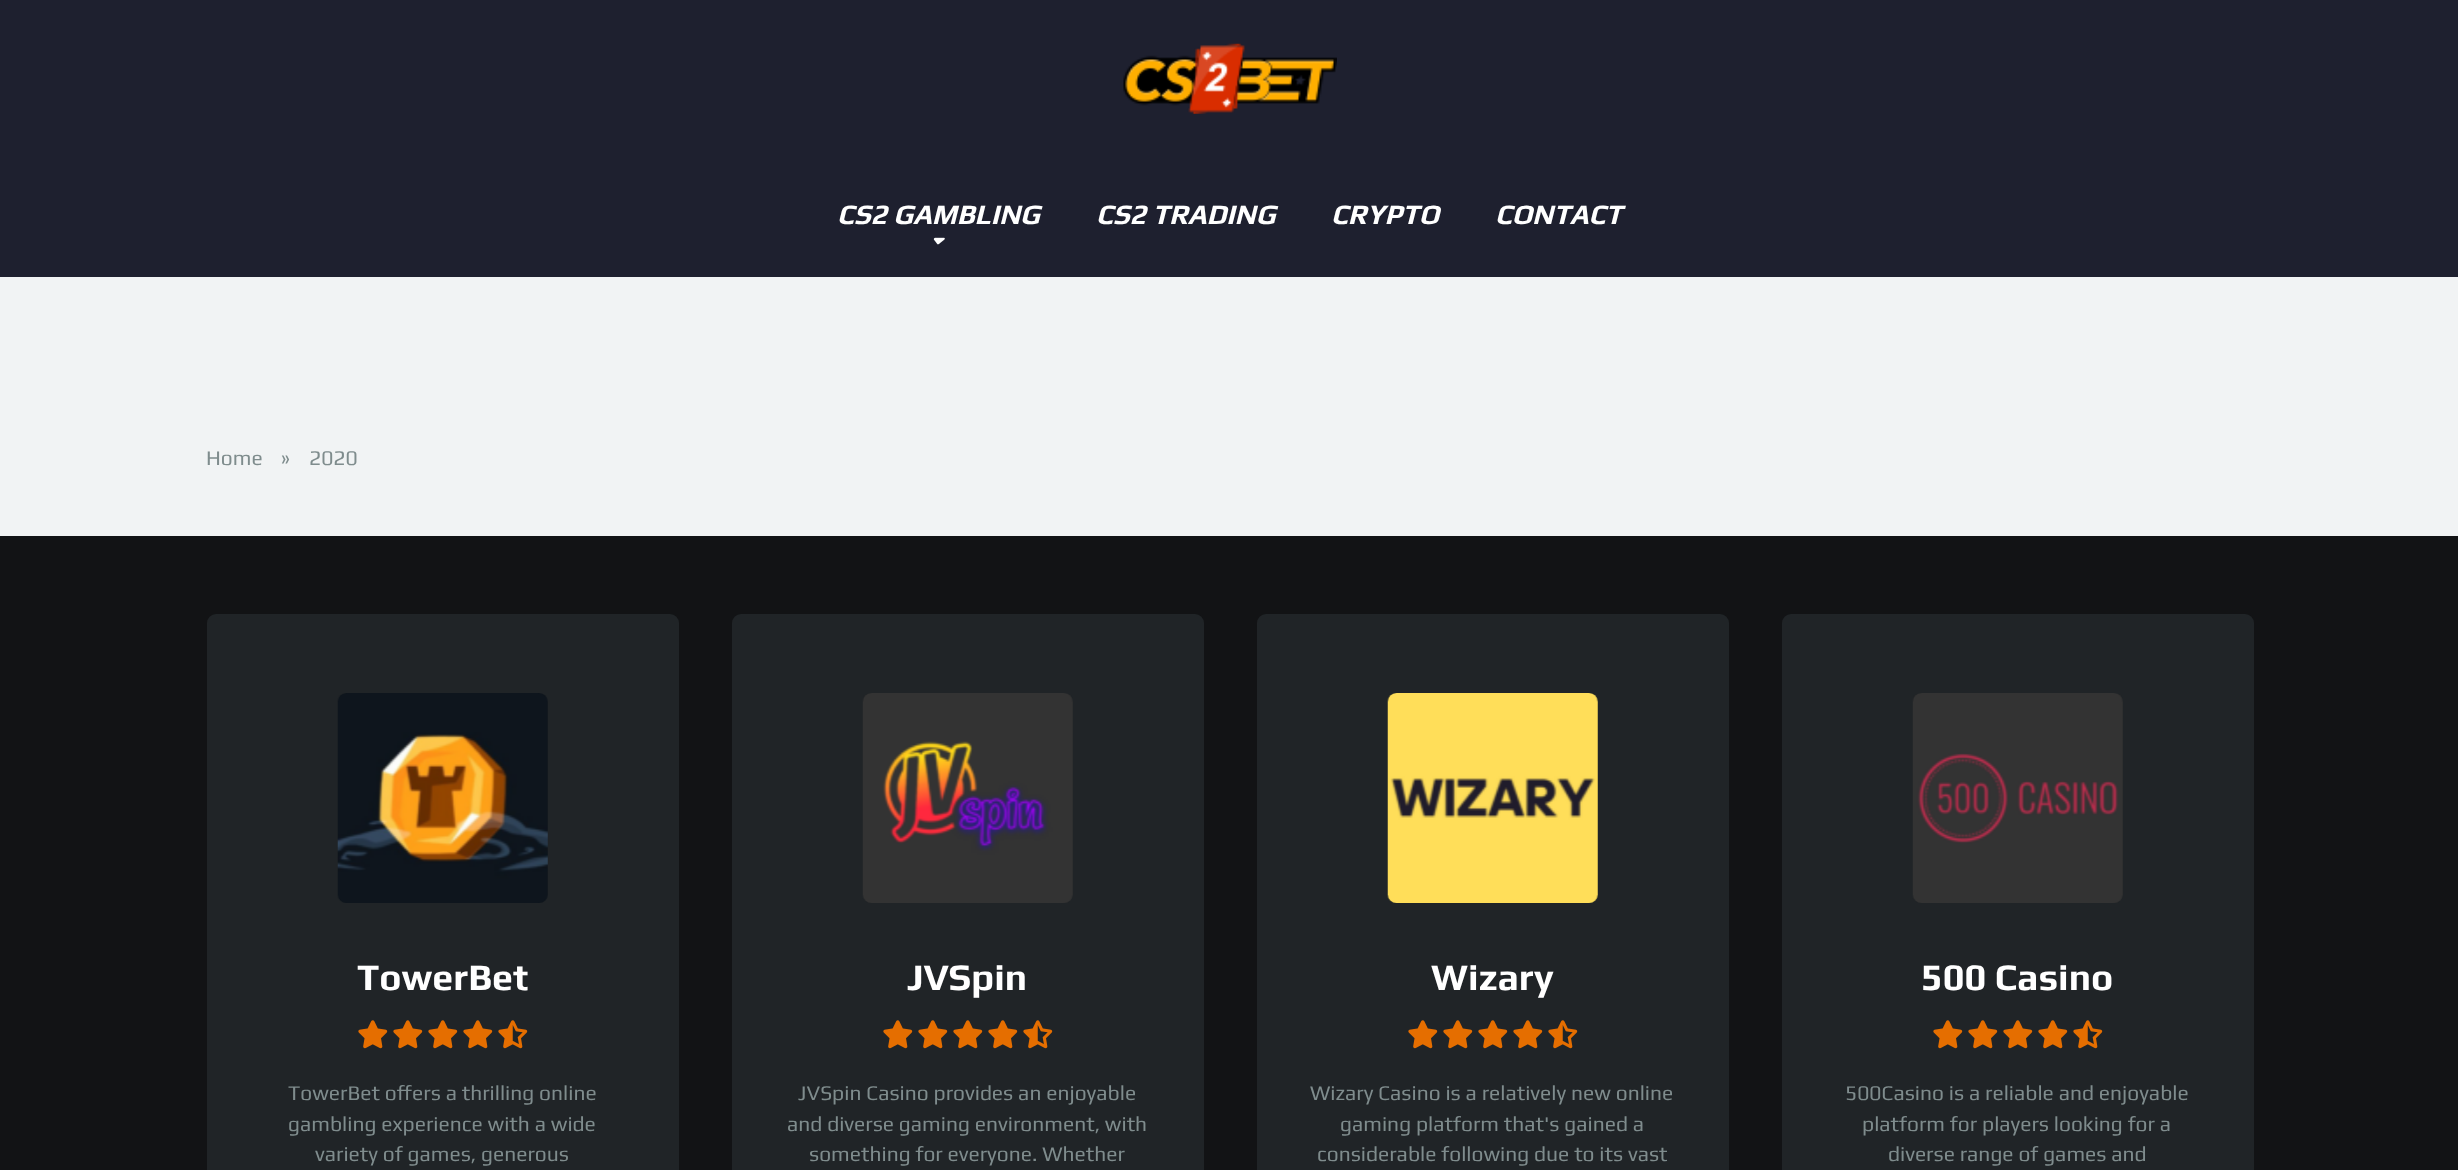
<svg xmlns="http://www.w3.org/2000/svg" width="2458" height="1170">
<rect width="100%" height="100%" fill="#121315"/>
<rect width="2458" height="277" fill="#1e202f"/>
<image x="1123" y="43" width="214" height="71" href="media/1.png"/>
<text x="837" y="224" style="font-family:Play;font-size:28px;font-weight:bold;font-style:italic;fill:#fff">CS2 GAMBLING</text>
<image x="933" y="237" width="12" height="8" href="media/2.png"/>
<text x="1096" y="224" style="font-family:Play;font-size:28px;font-weight:bold;font-style:italic;fill:#fff">CS2 TRADING</text>
<text x="1331" y="224" style="font-family:Play;font-size:28px;font-weight:bold;font-style:italic;fill:#fff">CRYPTO</text>
<text x="1495" y="224" style="font-family:Play;font-size:28px;font-weight:bold;font-style:italic;fill:#fff">CONTACT</text>
<rect y="277" width="2458" height="259" fill="#f1f3f4"/>
<text x="206" y="465" style="font-family:Play;font-size:21px;fill:#7f8c8d">Home</text>
<text x="281" y="465" style="font-family:Play;font-size:21px;fill:#7f8c8d">»</text>
<text x="309" y="465" style="font-family:Play;font-size:21px;fill:#7f8c8d">2020</text>
<rect x="207" y="614" width="472" height="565" rx="9" fill="#202427"/>
<image x="337" y="693" width="211" height="210" href="media/3.png"/>
<text x="357" y="990" style="font-family:Play;font-size:37.5px;font-weight:bold;fill:#fff">TowerBet</text>
<image x="358" y="1020" width="30" height="29" href="media/4.png"/>
<image x="393" y="1020" width="30" height="29" href="media/4.png"/>
<image x="428" y="1020" width="30" height="29" href="media/4.png"/>
<image x="463" y="1020" width="30" height="29" href="media/4.png"/>
<image x="498" y="1020" width="30" height="29" href="media/5.png"/>
<text x="288" y="1100" style="font-family:Play;font-size:21px;fill:#7f8c8d">TowerBet offers a thrilling online</text>
<text x="288" y="1131" style="font-family:Play;font-size:21px;fill:#7f8c8d">gambling experience with a wide</text>
<text x="315" y="1161" style="font-family:Play;font-size:21px;fill:#7f8c8d">variety of games, generous</text>
<rect x="732" y="614" width="472" height="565" rx="9" fill="#202427"/>
<image x="862" y="693" width="211" height="210" href="media/6.png"/>
<text x="907" y="990" style="font-family:Play;font-size:37.5px;font-weight:bold;fill:#fff">JVSpin</text>
<image x="883" y="1020" width="30" height="29" href="media/4.png"/>
<image x="918" y="1020" width="30" height="29" href="media/4.png"/>
<image x="953" y="1020" width="30" height="29" href="media/4.png"/>
<image x="988" y="1020" width="30" height="29" href="media/4.png"/>
<image x="1023" y="1020" width="30" height="29" href="media/5.png"/>
<text x="798" y="1100" style="font-family:Play;font-size:21px;fill:#7f8c8d">JVSpin Casino provides an enjoyable</text>
<text x="787" y="1131" style="font-family:Play;font-size:21px;fill:#7f8c8d">and diverse gaming environment, with</text>
<text x="809" y="1161" style="font-family:Play;font-size:21px;fill:#7f8c8d">something for everyone. Whether</text>
<rect x="1257" y="614" width="472" height="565" rx="9" fill="#202427"/>
<image x="1387" y="693" width="211" height="210" href="media/7.png"/>
<text x="1431" y="990" style="font-family:Play;font-size:37.5px;font-weight:bold;fill:#fff">Wizary</text>
<image x="1408" y="1020" width="30" height="29" href="media/4.png"/>
<image x="1443" y="1020" width="30" height="29" href="media/4.png"/>
<image x="1478" y="1020" width="30" height="29" href="media/4.png"/>
<image x="1513" y="1020" width="30" height="29" href="media/4.png"/>
<image x="1548" y="1020" width="30" height="29" href="media/5.png"/>
<text x="1310" y="1100" style="font-family:Play;font-size:21px;fill:#7f8c8d">Wizary Casino is a relatively new online</text>
<text x="1340" y="1131" style="font-family:Play;font-size:21px;fill:#7f8c8d">gaming platform that's gained a</text>
<text x="1317" y="1161" style="font-family:Play;font-size:21px;fill:#7f8c8d">considerable following due to its vast</text>
<rect x="1782" y="614" width="472" height="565" rx="9" fill="#202427"/>
<image x="1912" y="693" width="211" height="210" href="media/8.png"/>
<text x="1921" y="990" style="font-family:Play;font-size:37.5px;font-weight:bold;fill:#fff">500 Casino</text>
<image x="1933" y="1020" width="30" height="29" href="media/4.png"/>
<image x="1968" y="1020" width="30" height="29" href="media/4.png"/>
<image x="2003" y="1020" width="30" height="29" href="media/4.png"/>
<image x="2038" y="1020" width="30" height="29" href="media/4.png"/>
<image x="2073" y="1020" width="30" height="29" href="media/5.png"/>
<text x="1845" y="1100" style="font-family:Play;font-size:21px;fill:#7f8c8d">500Casino is a reliable and enjoyable</text>
<text x="1862" y="1131" style="font-family:Play;font-size:21px;fill:#7f8c8d">platform for players looking for a</text>
<text x="1888" y="1161" style="font-family:Play;font-size:21px;fill:#7f8c8d">diverse range of games and</text>
</svg>
